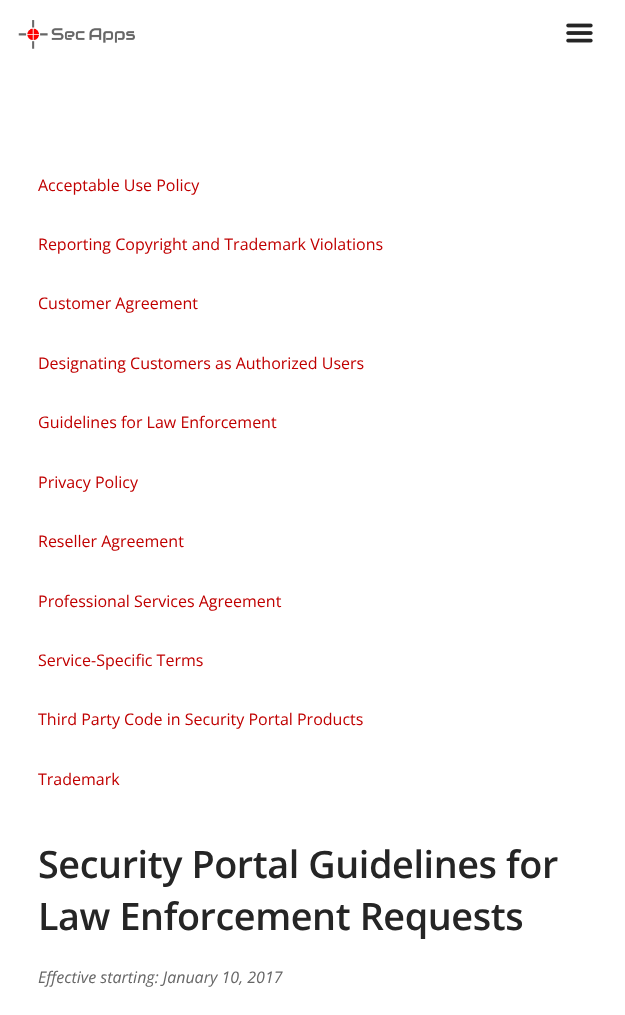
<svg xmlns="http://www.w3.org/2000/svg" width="625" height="1015">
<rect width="100%" height="100%" fill="#fff"/>
<image x="18" y="20" width="117" height="29" href="media/1.png"/>
<image x="566" y="23" width="27" height="20" href="media/2.png"/>
<text x="38" y="191" style="font-family:Open Sans;font-size:16px;fill:#c00000">Acceptable Use Policy</text>
<text x="38" y="250" style="font-family:Open Sans;font-size:16px;fill:#c00000">Reporting Copyright and Trademark Violations</text>
<text x="38" y="309" style="font-family:Open Sans;font-size:16px;fill:#c00000">Customer Agreement</text>
<text x="38" y="369" style="font-family:Open Sans;font-size:16px;fill:#c00000">Designating Customers as Authorized Users</text>
<text x="38" y="428" style="font-family:Open Sans;font-size:16px;fill:#c00000">Guidelines for Law Enforcement</text>
<text x="38" y="488" style="font-family:Open Sans;font-size:16px;fill:#c00000">Privacy Policy</text>
<text x="38" y="547" style="font-family:Open Sans;font-size:16px;fill:#c00000">Reseller Agreement</text>
<text x="38" y="607" style="font-family:Open Sans;font-size:16px;fill:#c00000">Professional Services Agreement</text>
<text x="38" y="666" style="font-family:Open Sans;font-size:16px;fill:#c00000">Service-Specific Terms</text>
<text x="38" y="725" style="font-family:Open Sans;font-size:16px;fill:#c00000">Third Party Code in Security Portal Products</text>
<text x="38" y="785" style="font-family:Open Sans;font-size:16px;fill:#c00000">Trademark</text>
<text x="38" y="878" style="font-family:Open Sans;font-size:37.75px;font-weight:600;letter-spacing:-0.4px;fill:#252525">Security Portal Guidelines for</text>
<text x="38" y="930" style="font-family:Open Sans;font-size:37.75px;font-weight:600;letter-spacing:-0.4px;fill:#252525">Law Enforcement Requests</text>
<text x="38" y="983" style="font-family:Open Sans;font-size:16px;font-style:italic;fill:#666">Effective starting: January 10, 2017</text>
</svg>
